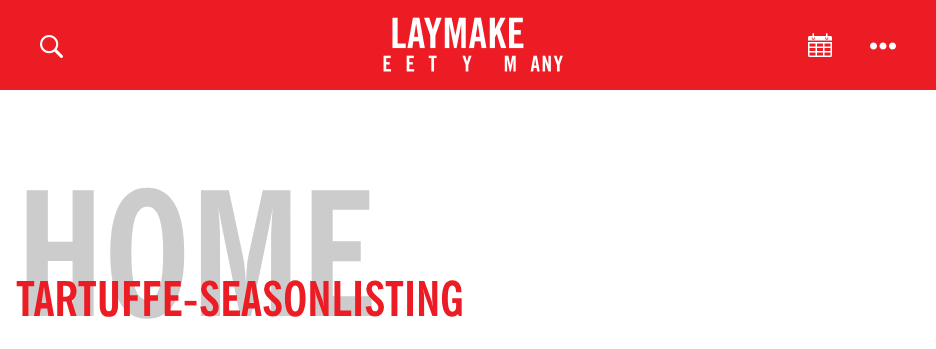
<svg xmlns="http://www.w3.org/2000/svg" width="936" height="349">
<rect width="100%" height="100%" fill="#fff"/>
<rect width="936" height="90" fill="#eb1c24"/>
<image x="40" y="35" width="23" height="23" href="media/1.png"/>
<image x="383" y="17" width="180" height="55" href="media/2.png"/>
<image x="808" y="33" width="24" height="24" href="media/3.png"/>
<image x="870" y="42" width="26" height="8" href="media/4.png"/>
<text x="16" y="316" style="font-family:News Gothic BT;font-size:172px;font-weight:bold;fill:#ccc">HOME</text>
<text x="16" y="316" style="font-family:News Gothic BT;font-size:48px;font-weight:bold;fill:#eb1c24">TARTUFFE-SEASONLISTING</text>
</svg>
